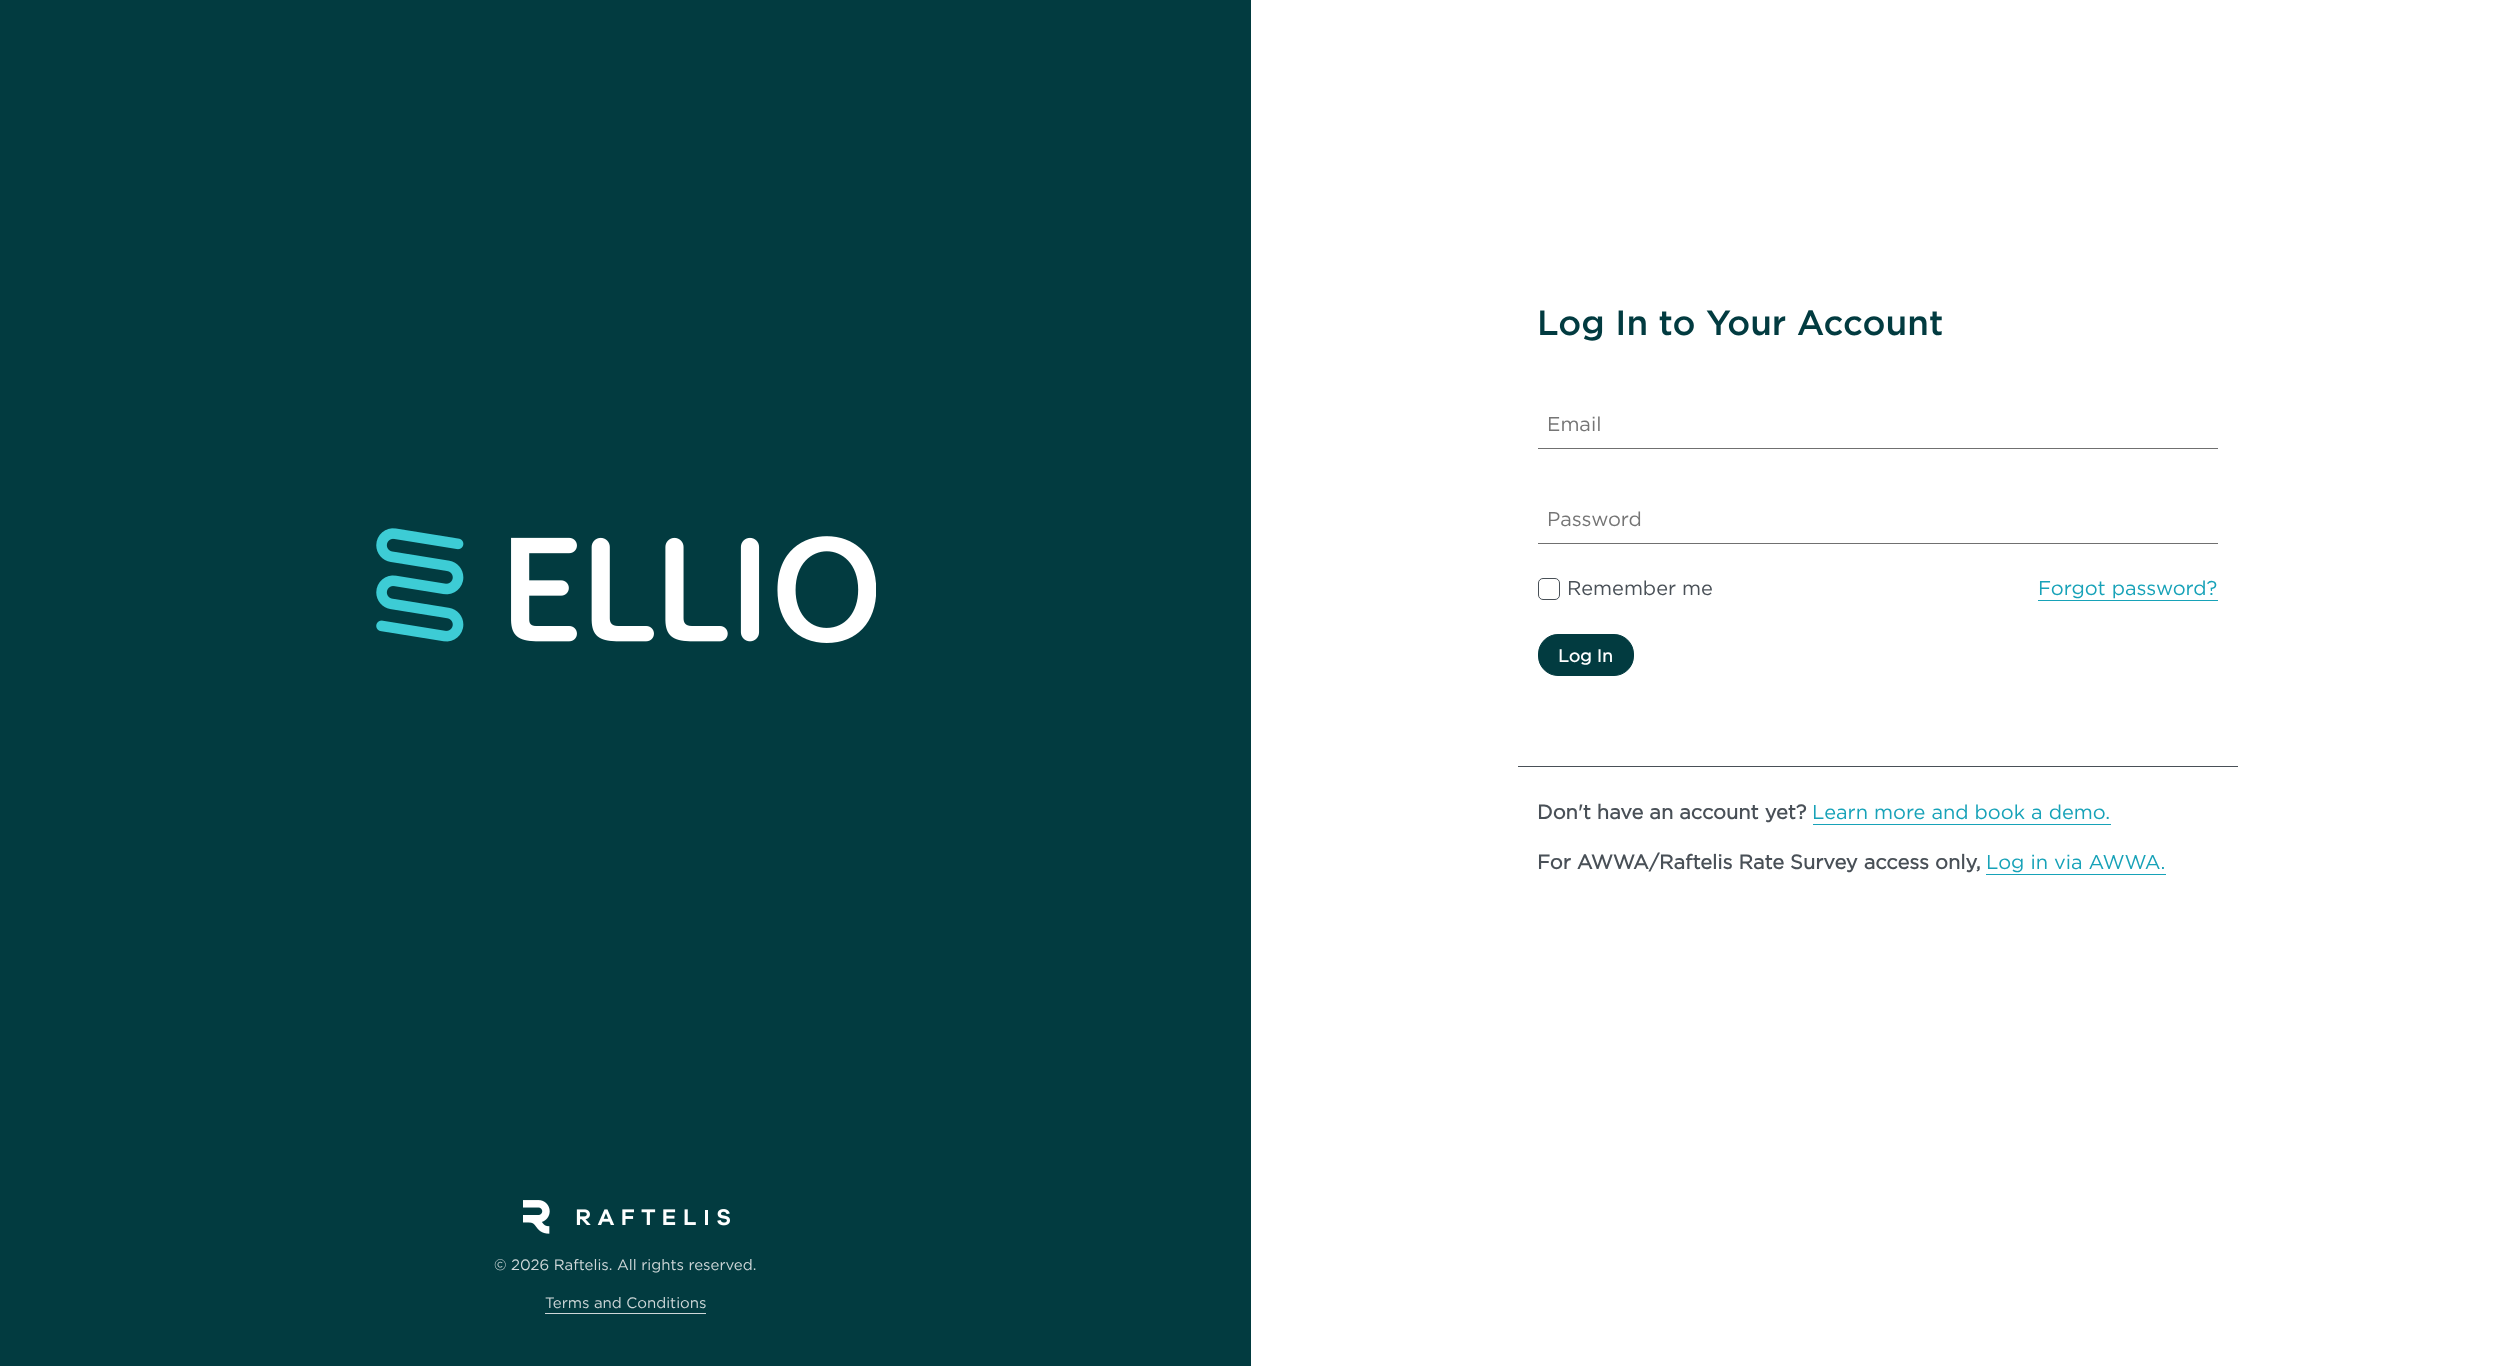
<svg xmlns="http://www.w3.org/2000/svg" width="2502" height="1366">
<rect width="100%" height="100%" fill="#fff"/>
<rect width="1251" height="1366" fill="#023b40"/>
<image x="376" y="528" width="500" height="115" href="media/1.png"/>
<text x="1537" y="335" style="font-family:Gotham;font-size:35px;font-weight:500;fill:#023b40">Log In to Your Account</text>
<rect x="1538" y="448" width="680" height="1" fill="#707070"/>
<text x="1547" y="431" style="font-family:Gotham;font-size:20px;fill:#757575">Email</text>
<rect x="1538" y="543" width="680" height="1" fill="#707070"/>
<text x="1547" y="526" style="font-family:Gotham;font-size:20px;fill:#757575">Password</text>
<rect x="1538.5" y="578.5" width="21" height="21" rx="4.5" fill="none" stroke="#495057"/>
<text x="1567" y="595" style="font-family:Gotham;font-size:20px;fill:#495057">Remember me</text>
<text x="2038" y="595" style="font-family:Gotham;font-size:20px;fill:#17a2b8">Forgot password?</text>
<rect x="2038" y="600" width="180" height="1" fill="#17a2b8"/>
<rect x="1538.5" y="634.5" width="95" height="41" rx="19.5" fill="#023b40" stroke="#023b40"/>
<text x="1558" y="662" style="font-family:Gotham;font-size:17.5px;font-weight:bold;fill:#fff">Log In</text>
<rect x="1518" y="766" width="720" height="1" fill="#495057"/>
<text x="1537" y="819" style="font-family:Gotham;font-size:20px;font-weight:bold;fill:#495057">Don't have an account yet?</text>
<text x="1812" y="819" style="font-family:Gotham;font-size:20px;fill:#17a2b8">Learn more and book a demo.</text>
<rect x="1813" y="824" width="298" height="1" fill="#17a2b8"/>
<text x="1537" y="869" style="font-family:Gotham;font-size:20px;font-weight:bold;fill:#495057">For AWWA/Raftelis Rate Survey access only,</text>
<text x="1986" y="869" style="font-family:Gotham;font-size:20px;fill:#17a2b8">Log in via AWWA.</text>
<rect x="1986" y="874" width="180" height="1" fill="#17a2b8"/>
<image x="523" y="1200" width="207" height="34" href="media/2.png"/>
<text x="494" y="1270" style="font-family:Gotham;font-size:15px;fill:#ced7d8">© 2026 Raftelis. All rights reserved.</text>
<text x="545" y="1308" style="font-family:Gotham;font-size:15px;fill:#ced7d8">Terms and Conditions</text>
<rect x="545" y="1313" width="161" height="1" fill="#ced7d8"/>
</svg>
